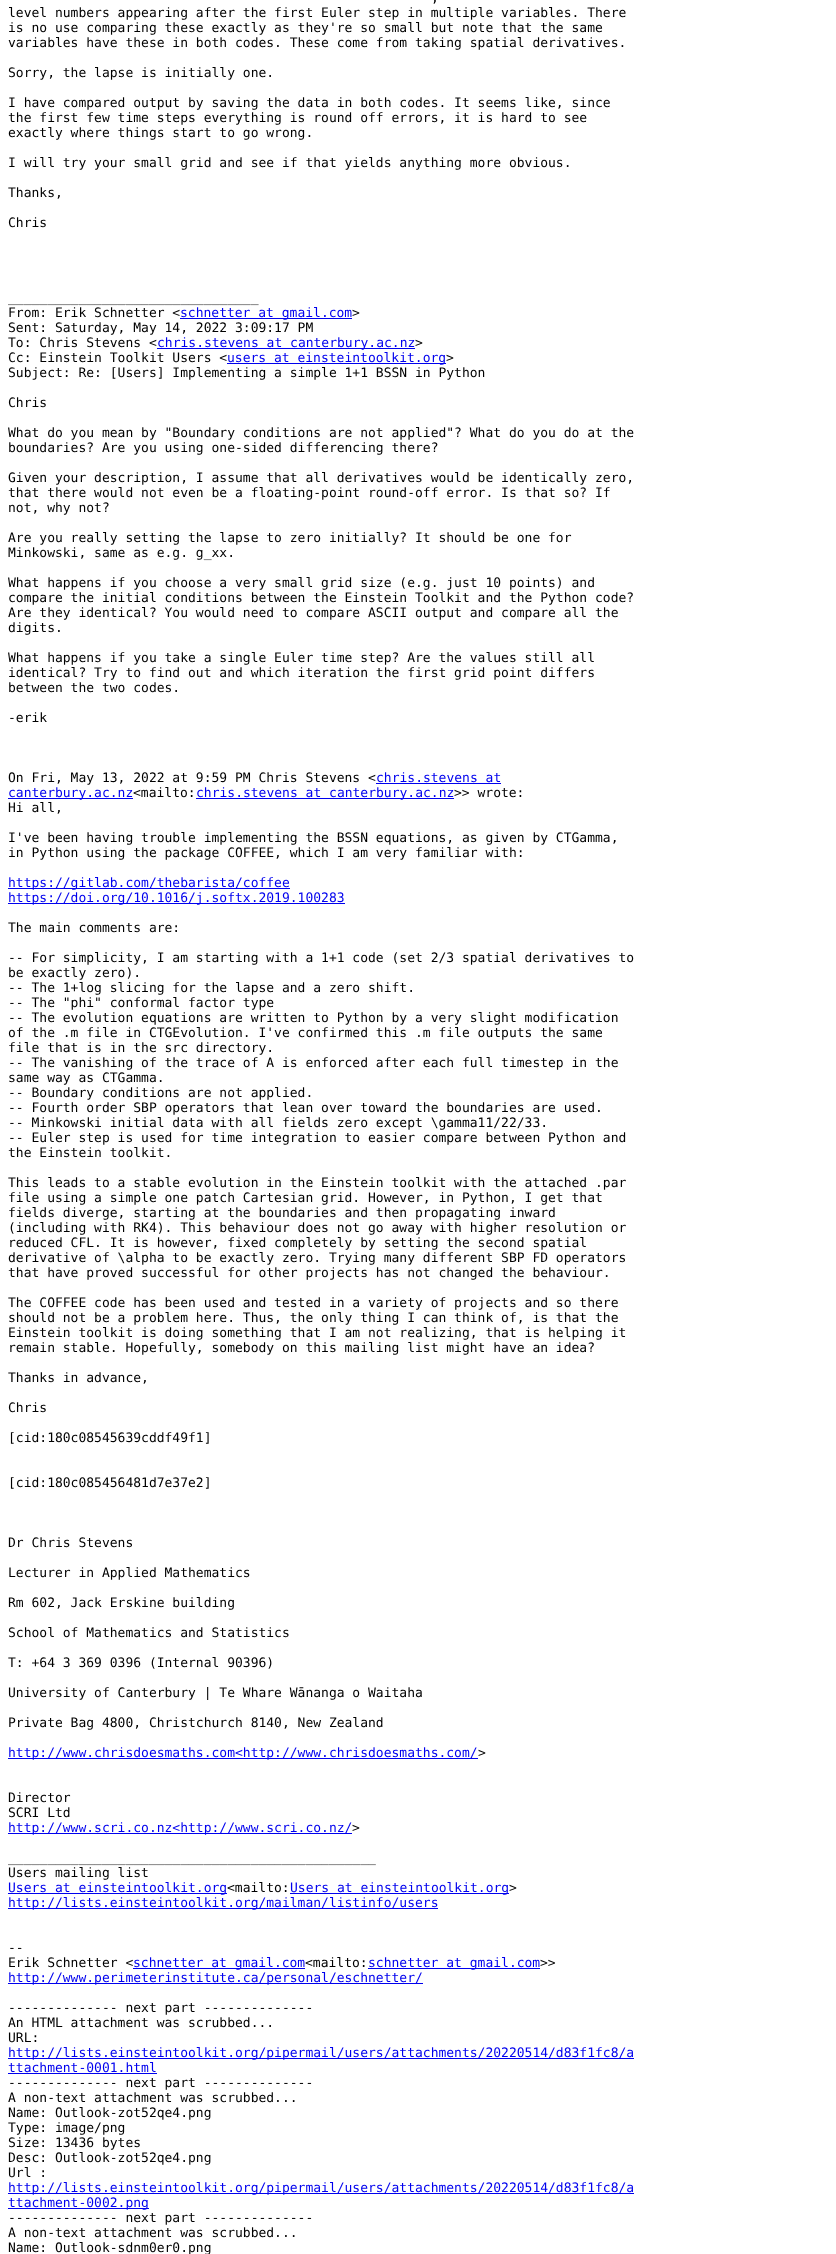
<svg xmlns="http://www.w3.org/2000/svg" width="836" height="2254">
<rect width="100%" height="100%" fill="#fff"/>
<text x="431" y="2" style="font-family:DejaVu Sans Mono;font-size:13px;fill:#000">,</text>
<text x="8" y="17" style="font-family:DejaVu Sans Mono;font-size:13px;fill:#000">level numbers appearing after the first Euler step in multiple variables. There</text>
<text x="8" y="32" style="font-family:DejaVu Sans Mono;font-size:13px;fill:#000">is no use comparing these exactly as they're so small but note that the same</text>
<text x="8" y="47" style="font-family:DejaVu Sans Mono;font-size:13px;fill:#000">variables have these in both codes. These come from taking spatial derivatives.</text>
<text x="8" y="77" style="font-family:DejaVu Sans Mono;font-size:13px;fill:#000">Sorry, the lapse is initially one.</text>
<text x="8" y="107" style="font-family:DejaVu Sans Mono;font-size:13px;fill:#000">I have compared output by saving the data in both codes. It seems like, since</text>
<text x="8" y="122" style="font-family:DejaVu Sans Mono;font-size:13px;fill:#000">the first few time steps everything is round off errors, it is hard to see</text>
<text x="8" y="137" style="font-family:DejaVu Sans Mono;font-size:13px;fill:#000">exactly where things start to go wrong.</text>
<text x="8" y="167" style="font-family:DejaVu Sans Mono;font-size:13px;fill:#000">I will try your small grid and see if that yields anything more obvious.</text>
<text x="8" y="197" style="font-family:DejaVu Sans Mono;font-size:13px;fill:#000">Thanks,</text>
<text x="8" y="227" style="font-family:DejaVu Sans Mono;font-size:13px;fill:#000">Chris</text>
<text x="8" y="302" style="font-family:DejaVu Sans Mono;font-size:13px;fill:#000">________________________________</text>
<text x="8" y="317" style="font-family:DejaVu Sans Mono;font-size:13px;fill:#000">From: Erik Schnetter &lt;</text>
<rect x="180" y="318" width="172" height="1" fill="#00e"/>
<text x="180" y="317" style="font-family:DejaVu Sans Mono;font-size:13px;fill:#00e">schnetter at gmail.com</text>
<text x="352" y="317" style="font-family:DejaVu Sans Mono;font-size:13px;fill:#000">&gt;</text>
<text x="8" y="332" style="font-family:DejaVu Sans Mono;font-size:13px;fill:#000">Sent: Saturday, May 14, 2022 3:09:17 PM</text>
<text x="8" y="347" style="font-family:DejaVu Sans Mono;font-size:13px;fill:#000">To: Chris Stevens &lt;</text>
<rect x="157" y="348" width="258" height="1" fill="#00e"/>
<text x="157" y="347" style="font-family:DejaVu Sans Mono;font-size:13px;fill:#00e">chris.stevens at canterbury.ac.nz</text>
<text x="415" y="347" style="font-family:DejaVu Sans Mono;font-size:13px;fill:#000">&gt;</text>
<text x="8" y="362" style="font-family:DejaVu Sans Mono;font-size:13px;fill:#000">Cc: Einstein Toolkit Users &lt;</text>
<rect x="227" y="363" width="219" height="1" fill="#00e"/>
<text x="227" y="362" style="font-family:DejaVu Sans Mono;font-size:13px;fill:#00e">users at einsteintoolkit.org</text>
<text x="446" y="362" style="font-family:DejaVu Sans Mono;font-size:13px;fill:#000">&gt;</text>
<text x="8" y="377" style="font-family:DejaVu Sans Mono;font-size:13px;fill:#000">Subject: Re: [Users] Implementing a simple 1+1 BSSN in Python</text>
<text x="8" y="407" style="font-family:DejaVu Sans Mono;font-size:13px;fill:#000">Chris</text>
<text x="8" y="437" style="font-family:DejaVu Sans Mono;font-size:13px;fill:#000">What do you mean by "Boundary conditions are not applied"? What do you do at the</text>
<text x="8" y="452" style="font-family:DejaVu Sans Mono;font-size:13px;fill:#000">boundaries? Are you using one-sided differencing there?</text>
<text x="8" y="482" style="font-family:DejaVu Sans Mono;font-size:13px;fill:#000">Given your description, I assume that all derivatives would be identically zero,</text>
<text x="8" y="497" style="font-family:DejaVu Sans Mono;font-size:13px;fill:#000">that there would not even be a floating-point round-off error. Is that so? If</text>
<text x="8" y="512" style="font-family:DejaVu Sans Mono;font-size:13px;fill:#000">not, why not?</text>
<text x="8" y="542" style="font-family:DejaVu Sans Mono;font-size:13px;fill:#000">Are you really setting the lapse to zero initially? It should be one for</text>
<text x="8" y="557" style="font-family:DejaVu Sans Mono;font-size:13px;fill:#000">Minkowski, same as e.g. g_xx.</text>
<text x="8" y="587" style="font-family:DejaVu Sans Mono;font-size:13px;fill:#000">What happens if you choose a very small grid size (e.g. just 10 points) and</text>
<text x="8" y="602" style="font-family:DejaVu Sans Mono;font-size:13px;fill:#000">compare the initial conditions between the Einstein Toolkit and the Python code?</text>
<text x="8" y="617" style="font-family:DejaVu Sans Mono;font-size:13px;fill:#000">Are they identical? You would need to compare ASCII output and compare all the</text>
<text x="8" y="632" style="font-family:DejaVu Sans Mono;font-size:13px;fill:#000">digits.</text>
<text x="8" y="662" style="font-family:DejaVu Sans Mono;font-size:13px;fill:#000">What happens if you take a single Euler time step? Are the values still all</text>
<text x="8" y="677" style="font-family:DejaVu Sans Mono;font-size:13px;fill:#000">identical? Try to find out and which iteration the first grid point differs</text>
<text x="8" y="692" style="font-family:DejaVu Sans Mono;font-size:13px;fill:#000">between the two codes.</text>
<text x="8" y="722" style="font-family:DejaVu Sans Mono;font-size:13px;fill:#000">-erik</text>
<text x="8" y="782" style="font-family:DejaVu Sans Mono;font-size:13px;fill:#000">On Fri, May 13, 2022 at 9:59 PM Chris Stevens &lt;</text>
<text x="376" y="782" style="font-family:DejaVu Sans Mono;font-size:13px;fill:#00e">chris.stevens at</text>
<rect x="376" y="783" width="125" height="1" fill="#00e"/>
<rect x="8" y="798" width="125" height="1" fill="#00e"/>
<text x="8" y="797" style="font-family:DejaVu Sans Mono;font-size:13px;fill:#00e">canterbury.ac.nz</text>
<text x="133" y="797" style="font-family:DejaVu Sans Mono;font-size:13px;fill:#000">&lt;mailto:</text>
<rect x="196" y="798" width="258" height="1" fill="#00e"/>
<text x="196" y="797" style="font-family:DejaVu Sans Mono;font-size:13px;fill:#00e">chris.stevens at canterbury.ac.nz</text>
<text x="454" y="797" style="font-family:DejaVu Sans Mono;font-size:13px;fill:#000">&gt;&gt; wrote:</text>
<text x="8" y="812" style="font-family:DejaVu Sans Mono;font-size:13px;fill:#000">Hi all,</text>
<text x="8" y="842" style="font-family:DejaVu Sans Mono;font-size:13px;fill:#000">I've been having trouble implementing the BSSN equations, as given by CTGamma,</text>
<text x="8" y="857" style="font-family:DejaVu Sans Mono;font-size:13px;fill:#000">in Python using the package COFFEE, which I am very familiar with:</text>
<rect x="8" y="888" width="282" height="1" fill="#00e"/>
<text x="8" y="887" style="font-family:DejaVu Sans Mono;font-size:13px;fill:#00e">https://gitlab.com/thebarista/coffee</text>
<rect x="8" y="903" width="337" height="1" fill="#00e"/>
<text x="8" y="902" style="font-family:DejaVu Sans Mono;font-size:13px;fill:#00e">https://doi.org/10.1016/j.softx.2019.100283</text>
<text x="8" y="932" style="font-family:DejaVu Sans Mono;font-size:13px;fill:#000">The main comments are:</text>
<text x="8" y="962" style="font-family:DejaVu Sans Mono;font-size:13px;fill:#000">-- For simplicity, I am starting with a 1+1 code (set 2/3 spatial derivatives to</text>
<text x="8" y="977" style="font-family:DejaVu Sans Mono;font-size:13px;fill:#000">be exactly zero).</text>
<text x="8" y="992" style="font-family:DejaVu Sans Mono;font-size:13px;fill:#000">-- The 1+log slicing for the lapse and a zero shift.</text>
<text x="8" y="1007" style="font-family:DejaVu Sans Mono;font-size:13px;fill:#000">-- The "phi" conformal factor type</text>
<text x="8" y="1022" style="font-family:DejaVu Sans Mono;font-size:13px;fill:#000">-- The evolution equations are written to Python by a very slight modification</text>
<text x="8" y="1037" style="font-family:DejaVu Sans Mono;font-size:13px;fill:#000">of the .m file in CTGEvolution. I've confirmed this .m file outputs the same</text>
<text x="8" y="1052" style="font-family:DejaVu Sans Mono;font-size:13px;fill:#000">file that is in the src directory.</text>
<text x="8" y="1067" style="font-family:DejaVu Sans Mono;font-size:13px;fill:#000">-- The vanishing of the trace of A is enforced after each full timestep in the</text>
<text x="8" y="1082" style="font-family:DejaVu Sans Mono;font-size:13px;fill:#000">same way as CTGamma.</text>
<text x="8" y="1097" style="font-family:DejaVu Sans Mono;font-size:13px;fill:#000">-- Boundary conditions are not applied.</text>
<text x="8" y="1112" style="font-family:DejaVu Sans Mono;font-size:13px;fill:#000">-- Fourth order SBP operators that lean over toward the boundaries are used.</text>
<text x="8" y="1127" style="font-family:DejaVu Sans Mono;font-size:13px;fill:#000">-- Minkowski initial data with all fields zero except \gamma11/22/33.</text>
<text x="8" y="1142" style="font-family:DejaVu Sans Mono;font-size:13px;fill:#000">-- Euler step is used for time integration to easier compare between Python and</text>
<text x="8" y="1157" style="font-family:DejaVu Sans Mono;font-size:13px;fill:#000">the Einstein toolkit.</text>
<text x="8" y="1187" style="font-family:DejaVu Sans Mono;font-size:13px;fill:#000">This leads to a stable evolution in the Einstein toolkit with the attached .par</text>
<text x="8" y="1202" style="font-family:DejaVu Sans Mono;font-size:13px;fill:#000">file using a simple one patch Cartesian grid. However, in Python, I get that</text>
<text x="8" y="1217" style="font-family:DejaVu Sans Mono;font-size:13px;fill:#000">fields diverge, starting at the boundaries and then propagating inward</text>
<text x="8" y="1232" style="font-family:DejaVu Sans Mono;font-size:13px;fill:#000">(including with RK4). This behaviour does not go away with higher resolution or</text>
<text x="8" y="1247" style="font-family:DejaVu Sans Mono;font-size:13px;fill:#000">reduced CFL. It is however, fixed completely by setting the second spatial</text>
<text x="8" y="1262" style="font-family:DejaVu Sans Mono;font-size:13px;fill:#000">derivative of \alpha to be exactly zero. Trying many different SBP FD operators</text>
<text x="8" y="1277" style="font-family:DejaVu Sans Mono;font-size:13px;fill:#000">that have proved successful for other projects has not changed the behaviour.</text>
<text x="8" y="1307" style="font-family:DejaVu Sans Mono;font-size:13px;fill:#000">The COFFEE code has been used and tested in a variety of projects and so there</text>
<text x="8" y="1322" style="font-family:DejaVu Sans Mono;font-size:13px;fill:#000">should not be a problem here. Thus, the only thing I can think of, is that the</text>
<text x="8" y="1337" style="font-family:DejaVu Sans Mono;font-size:13px;fill:#000">Einstein toolkit is doing something that I am not realizing, that is helping it</text>
<text x="8" y="1352" style="font-family:DejaVu Sans Mono;font-size:13px;fill:#000">remain stable. Hopefully, somebody on this mailing list might have an idea?</text>
<text x="8" y="1382" style="font-family:DejaVu Sans Mono;font-size:13px;fill:#000">Thanks in advance,</text>
<text x="8" y="1412" style="font-family:DejaVu Sans Mono;font-size:13px;fill:#000">Chris</text>
<text x="8" y="1442" style="font-family:DejaVu Sans Mono;font-size:13px;fill:#000">[cid:180c08545639cddf49f1]</text>
<text x="8" y="1487" style="font-family:DejaVu Sans Mono;font-size:13px;fill:#000">[cid:180c085456481d7e37e2]</text>
<text x="8" y="1547" style="font-family:DejaVu Sans Mono;font-size:13px;fill:#000">Dr Chris Stevens</text>
<text x="8" y="1577" style="font-family:DejaVu Sans Mono;font-size:13px;fill:#000">Lecturer in Applied Mathematics</text>
<text x="8" y="1607" style="font-family:DejaVu Sans Mono;font-size:13px;fill:#000">Rm 602, Jack Erskine building</text>
<text x="8" y="1637" style="font-family:DejaVu Sans Mono;font-size:13px;fill:#000">School of Mathematics and Statistics</text>
<text x="8" y="1667" style="font-family:DejaVu Sans Mono;font-size:13px;fill:#000">T: +64 3 369 0396 (Internal 90396)</text>
<text x="8" y="1697" style="font-family:DejaVu Sans Mono;font-size:13px;fill:#000">University of Canterbury | Te Whare Wānanga o Waitaha</text>
<text x="8" y="1727" style="font-family:DejaVu Sans Mono;font-size:13px;fill:#000">Private Bag 4800, Christchurch 8140, New Zealand</text>
<rect x="8" y="1758" width="470" height="1" fill="#00e"/>
<text x="8" y="1757" style="font-family:DejaVu Sans Mono;font-size:13px;fill:#00e">http://www.chrisdoesmaths.com&lt;http://www.chrisdoesmaths.com/</text>
<text x="478" y="1757" style="font-family:DejaVu Sans Mono;font-size:13px;fill:#000">&gt;</text>
<text x="8" y="1802" style="font-family:DejaVu Sans Mono;font-size:13px;fill:#000">Director</text>
<text x="8" y="1817" style="font-family:DejaVu Sans Mono;font-size:13px;fill:#000">SCRI Ltd</text>
<rect x="8" y="1833" width="344" height="1" fill="#00e"/>
<text x="8" y="1832" style="font-family:DejaVu Sans Mono;font-size:13px;fill:#00e">http://www.scri.co.nz&lt;http://www.scri.co.nz/</text>
<text x="352" y="1832" style="font-family:DejaVu Sans Mono;font-size:13px;fill:#000">&gt;</text>
<text x="8" y="1862" style="font-family:DejaVu Sans Mono;font-size:13px;fill:#000">_______________________________________________</text>
<text x="8" y="1877" style="font-family:DejaVu Sans Mono;font-size:13px;fill:#000">Users mailing list</text>
<rect x="8" y="1893" width="219" height="1" fill="#00e"/>
<text x="8" y="1892" style="font-family:DejaVu Sans Mono;font-size:13px;fill:#00e">Users at einsteintoolkit.org</text>
<text x="227" y="1892" style="font-family:DejaVu Sans Mono;font-size:13px;fill:#000">&lt;mailto:</text>
<rect x="290" y="1893" width="219" height="1" fill="#00e"/>
<text x="290" y="1892" style="font-family:DejaVu Sans Mono;font-size:13px;fill:#00e">Users at einsteintoolkit.org</text>
<text x="509" y="1892" style="font-family:DejaVu Sans Mono;font-size:13px;fill:#000">&gt;</text>
<rect x="8" y="1908" width="430" height="1" fill="#00e"/>
<text x="8" y="1907" style="font-family:DejaVu Sans Mono;font-size:13px;fill:#00e">http://lists.einsteintoolkit.org/mailman/listinfo/users</text>
<text x="8" y="1952" style="font-family:DejaVu Sans Mono;font-size:13px;fill:#000">--</text>
<text x="8" y="1967" style="font-family:DejaVu Sans Mono;font-size:13px;fill:#000">Erik Schnetter &lt;</text>
<rect x="133" y="1968" width="172" height="1" fill="#00e"/>
<text x="133" y="1967" style="font-family:DejaVu Sans Mono;font-size:13px;fill:#00e">schnetter at gmail.com</text>
<text x="305" y="1967" style="font-family:DejaVu Sans Mono;font-size:13px;fill:#000">&lt;mailto:</text>
<rect x="368" y="1968" width="172" height="1" fill="#00e"/>
<text x="368" y="1967" style="font-family:DejaVu Sans Mono;font-size:13px;fill:#00e">schnetter at gmail.com</text>
<text x="540" y="1967" style="font-family:DejaVu Sans Mono;font-size:13px;fill:#000">&gt;&gt;</text>
<rect x="8" y="1983" width="415" height="1" fill="#00e"/>
<text x="8" y="1982" style="font-family:DejaVu Sans Mono;font-size:13px;fill:#00e">http://www.perimeterinstitute.ca/personal/eschnetter/</text>
<text x="8" y="2012" style="font-family:DejaVu Sans Mono;font-size:13px;fill:#000">-------------- next part --------------</text>
<text x="8" y="2027" style="font-family:DejaVu Sans Mono;font-size:13px;fill:#000">An HTML attachment was scrubbed...</text>
<text x="8" y="2042" style="font-family:DejaVu Sans Mono;font-size:13px;fill:#000">URL:</text>
<rect x="8" y="2058" width="626" height="1" fill="#00e"/>
<text x="8" y="2057" style="font-family:DejaVu Sans Mono;font-size:13px;fill:#00e">http://lists.einsteintoolkit.org/pipermail/users/attachments/20220514/d83f1fc8/a</text>
<text x="8" y="2072" style="font-family:DejaVu Sans Mono;font-size:13px;fill:#00e">ttachment-0001.html</text>
<rect x="8" y="2073" width="149" height="1" fill="#00e"/>
<text x="8" y="2087" style="font-family:DejaVu Sans Mono;font-size:13px;fill:#000">-------------- next part --------------</text>
<text x="8" y="2102" style="font-family:DejaVu Sans Mono;font-size:13px;fill:#000">A non-text attachment was scrubbed...</text>
<text x="8" y="2117" style="font-family:DejaVu Sans Mono;font-size:13px;fill:#000">Name: Outlook-zot52qe4.png</text>
<text x="8" y="2132" style="font-family:DejaVu Sans Mono;font-size:13px;fill:#000">Type: image/png</text>
<text x="8" y="2147" style="font-family:DejaVu Sans Mono;font-size:13px;fill:#000">Size: 13436 bytes</text>
<text x="8" y="2162" style="font-family:DejaVu Sans Mono;font-size:13px;fill:#000">Desc: Outlook-zot52qe4.png</text>
<text x="8" y="2177" style="font-family:DejaVu Sans Mono;font-size:13px;fill:#000">Url :</text>
<rect x="8" y="2193" width="626" height="1" fill="#00e"/>
<text x="8" y="2192" style="font-family:DejaVu Sans Mono;font-size:13px;fill:#00e">http://lists.einsteintoolkit.org/pipermail/users/attachments/20220514/d83f1fc8/a</text>
<rect x="8" y="2208" width="141" height="1" fill="#00e"/>
<text x="8" y="2207" style="font-family:DejaVu Sans Mono;font-size:13px;fill:#00e">ttachment-0002.png</text>
<text x="8" y="2222" style="font-family:DejaVu Sans Mono;font-size:13px;fill:#000">-------------- next part --------------</text>
<text x="8" y="2237" style="font-family:DejaVu Sans Mono;font-size:13px;fill:#000">A non-text attachment was scrubbed...</text>
<text x="8" y="2252" style="font-family:DejaVu Sans Mono;font-size:13px;fill:#000">Name: Outlook-sdnm0er0.png</text>
</svg>
